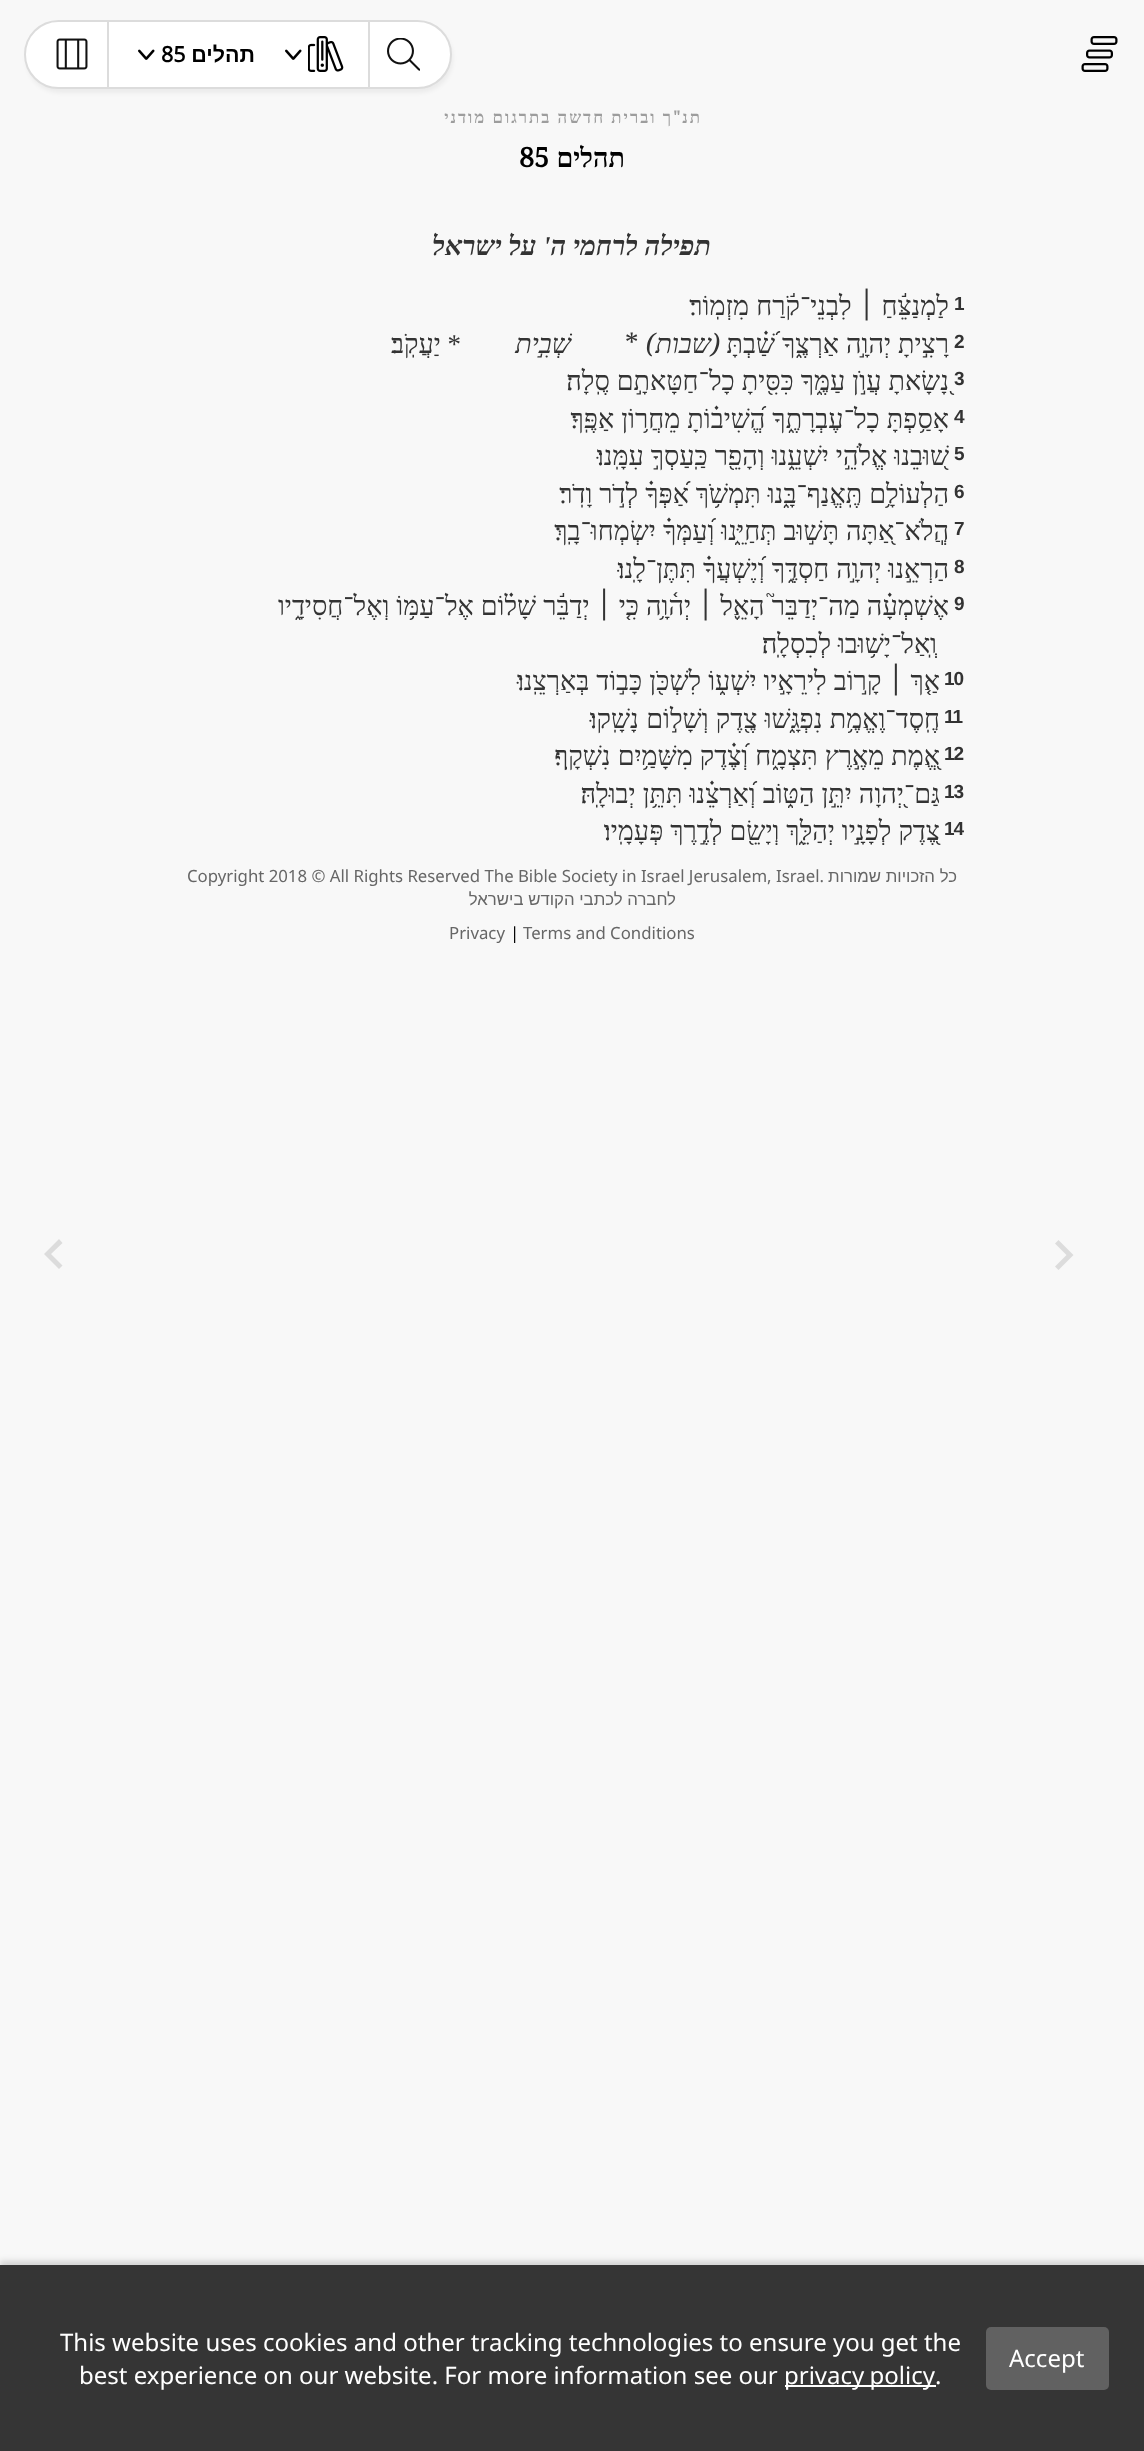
<svg xmlns="http://www.w3.org/2000/svg" width="1144" height="2451">
<rect width="100%" height="100%" fill="#f8f8f8"/>
<image x="1081" y="36" width="37" height="36" href="media/1.png"/>
<rect x="26" y="24" width="427" height="69" rx="34.5" fill="#0000000d" filter="blur(2px)"/>
<rect x="25" y="21" width="426" height="67" rx="33.5" fill="#fff" stroke="#dcdcdc" stroke-width="2"/>
<rect x="368" y="21" width="2" height="66" fill="#dcdcdc"/>
<image x="387" y="38" width="33" height="33" href="media/2.png"/>
<image x="308" y="36" width="36" height="36" href="media/3.png"/>
<image x="285" y="49" width="17" height="11" href="media/4.png"/>
<text x="255" y="62" style="font-family:Liberation Sans;font-size:21.5px;font-weight:bold;direction:rtl;fill:#000">תהלים</text>
<text x="161" y="62" style="font-family:Noto Sans;font-size:21.5px;font-weight:bold;fill:#000">85</text>
<image x="138" y="49" width="17" height="11" href="media/4.png"/>
<rect x="107" y="21" width="2" height="66" fill="#dcdcdc"/>
<image x="56" y="38" width="32" height="32" href="media/5.png"/>
<text x="702" y="123" style="font-family:Liberation Serif;font-size:16.8px;font-weight:bold;letter-spacing:2px;direction:rtl;fill:#9d9d9d">תנ</text>
<text x="682" y="123" style="font-family:Noto Serif;font-size:16.8px;font-weight:bold;letter-spacing:2px;direction:rtl;fill:#9d9d9d">"</text>
<text x="673" y="123" style="font-family:Liberation Serif;font-size:16.8px;font-weight:bold;letter-spacing:2px;direction:rtl;fill:#9d9d9d">ך וברית חדשה בתרגום מודני</text>
<text x="625" y="167" style="font-family:Liberation Serif;font-size:27px;font-weight:bold;direction:rtl;fill:#000">תהלים</text>
<text x="519" y="167" style="font-family:Noto Serif;font-size:27px;font-weight:bold;fill:#000">85</text>
<text x="711" y="255" style="font-family:Liberation Serif;font-size:27px;font-weight:bold;font-style:italic;direction:rtl;fill:#333">תפילה לרחמי ה' על ישראל</text>
<text x="954" y="310" style="font-family:Liberation Sans;font-size:19px;font-weight:bold;letter-spacing:-1px;fill:#333">1</text>
<text x="949" y="315" word-spacing="0.5" style="font-family:Liberation Serif;font-size:27px;direction:rtl;fill:#333">לַמְנַצֵּ֬חַ ׀ לִבְנֵי־קֹ֬רַח מִזְמֽוֹר׃</text>
<text x="954" y="348" style="font-family:Liberation Sans;font-size:19px;font-weight:bold;letter-spacing:-1px;fill:#333">2</text>
<text x="949" y="353" word-spacing="0.25" style="font-family:Liberation Serif;font-size:27px;direction:rtl;fill:#333">רָצִ֣יתָ יְהוָ֣ה אַרְצֶ֑ךָ שַׁ֝֗בְתָּ</text>
<text x="655" y="353" style="font-family:Noto Serif;font-size:27px;font-style:italic;direction:rtl;fill:#333">)</text>
<text x="711" y="353" style="font-family:Liberation Serif;font-size:27px;font-style:italic;direction:rtl;fill:#333">שבות</text>
<text x="720" y="353" style="font-family:Noto Serif;font-size:27px;font-style:italic;direction:rtl;fill:#333">(</text>
<text x="625" y="353" style="font-family:Noto Serif;font-size:27px;fill:#333">*</text>
<text x="571" y="353" style="font-family:Liberation Serif;font-size:27px;font-style:italic;direction:rtl;fill:#333">שְׁבִ֣ית</text>
<text x="461" y="353" style="font-family:Liberation Serif;font-size:27px;direction:rtl;fill:#333">* יַעֲקֹֽב׃</text>
<text x="954" y="385" style="font-family:Liberation Sans;font-size:19px;font-weight:bold;letter-spacing:-1px;fill:#333">3</text>
<text x="949" y="390" word-spacing="0.25" style="font-family:Liberation Serif;font-size:27px;direction:rtl;fill:#333">נָ֭שָׂאתָ עֲוֺ֣ן עַמֶּ֑ךָ כִּסִּ֖יתָ כָל־חַטָּאתָ֣ם סֶֽלָה׃</text>
<text x="954" y="423" style="font-family:Liberation Sans;font-size:19px;font-weight:bold;letter-spacing:-1px;fill:#333">4</text>
<text x="949" y="428" word-spacing="0.25" style="font-family:Liberation Serif;font-size:27px;direction:rtl;fill:#333">אָסַ֥פְתָּ כָל־עֶבְרָתֶ֑ךָ הֱ֝שִׁיב֗וֹתָ מֵחֲר֥וֹן אַפֶּֽךָ׃</text>
<text x="954" y="460" style="font-family:Liberation Sans;font-size:19px;font-weight:bold;letter-spacing:-1px;fill:#333">5</text>
<text x="949" y="465" word-spacing="0.25" style="font-family:Liberation Serif;font-size:27px;direction:rtl;fill:#333">שׁ֭וּבֵנוּ אֱלֹהֵ֣י יִשְׁעֵ֑נוּ וְהָפֵ֖ר כַּֽעַסְךָ֣ עִמָּֽנוּ׃</text>
<text x="954" y="498" style="font-family:Liberation Sans;font-size:19px;font-weight:bold;letter-spacing:-1px;fill:#333">6</text>
<text x="949" y="503" word-spacing="0.25" style="font-family:Liberation Serif;font-size:27px;direction:rtl;fill:#333">הַלְעוֹלָ֥ם תֶּֽאֱנַף־בָּ֑נוּ תִּמְשֹׁ֥ךְ אַ֝פְּךָ֗ לְדֹ֣ר וָדֹֽר׃</text>
<text x="954" y="535" style="font-family:Liberation Sans;font-size:19px;font-weight:bold;letter-spacing:-1px;fill:#333">7</text>
<text x="949" y="540" word-spacing="0.25" style="font-family:Liberation Serif;font-size:27px;direction:rtl;fill:#333">הֲֽלֹא־אַ֭תָּה תָּשׁ֣וּב תְּחַיֵּ֑נוּ וְ֝עַמְּךָ֗ יִשְׂמְחוּ־בָֽךְ׃</text>
<text x="954" y="573" style="font-family:Liberation Sans;font-size:19px;font-weight:bold;letter-spacing:-1px;fill:#333">8</text>
<text x="949" y="578" word-spacing="0.25" style="font-family:Liberation Serif;font-size:27px;direction:rtl;fill:#333">הַרְאֵ֣נוּ יְהוָ֣ה חַסְדֶּ֑ךָ וְ֝יֶשְׁעֲךָ֗ תִּתֶּן־לָֽנוּ׃</text>
<text x="954" y="610" style="font-family:Liberation Sans;font-size:19px;font-weight:bold;letter-spacing:-1px;fill:#333">9</text>
<text x="949" y="615" word-spacing="0.25" style="font-family:Liberation Serif;font-size:27px;direction:rtl;fill:#333">אֶשְׁמְעָ֗ה מַה־יְדַבֵּר֮ הָאֵ֪ל ׀ יְה֫וָ֥ה כִּ֤י ׀ יְדַבֵּ֬ר שָׁל֗וֹם אֶל־עַמּ֥וֹ וְאֶל־חֲסִידָ֑יו</text>
<text x="937" y="653" style="font-family:Liberation Serif;font-size:27px;direction:rtl;fill:#333">וְֽאַל־יָשׁ֥וּבוּ לְכִסְלָֽה׃</text>
<text x="944" y="685" style="font-family:Liberation Sans;font-size:19px;font-weight:bold;letter-spacing:-1px;fill:#333">10</text>
<text x="940" y="690" word-spacing="0.25" style="font-family:Liberation Serif;font-size:27px;direction:rtl;fill:#333">אַ֤ךְ ׀ קָר֣וֹב לִירֵאָ֣יו יִשְׁע֑וֹ לִשְׁכֹּ֖ן כָּב֣וֹד בְּאַרְצֵֽנוּ׃</text>
<text x="944" y="723" style="font-family:Liberation Sans;font-size:19px;font-weight:bold;letter-spacing:-1px;fill:#333">11</text>
<text x="940" y="728" word-spacing="0.5" style="font-family:Liberation Serif;font-size:27px;direction:rtl;fill:#333">חֶֽסֶד־וֶאֱמֶ֥ת נִפְגָּ֑שׁוּ צֶ֖דֶק וְשָׁל֣וֹם נָשָֽׁקוּ׃</text>
<text x="944" y="760" style="font-family:Liberation Sans;font-size:19px;font-weight:bold;letter-spacing:-1px;fill:#333">12</text>
<text x="940" y="765" word-spacing="0.25" style="font-family:Liberation Serif;font-size:27px;direction:rtl;fill:#333">אֱ֭מֶת מֵאֶ֣רֶץ תִּצְמָ֑ח וְ֝צֶ֗דֶק מִשָּׁמַ֥יִם נִשְׁקָֽף׃</text>
<text x="944" y="798" style="font-family:Liberation Sans;font-size:19px;font-weight:bold;letter-spacing:-1px;fill:#333">13</text>
<text x="940" y="803" word-spacing="0.25" style="font-family:Liberation Serif;font-size:27px;direction:rtl;fill:#333">גַּם־יְ֭הוָה יִתֵּ֣ן הַטּ֑וֹב וְ֝אַרְצֵ֗נוּ תִּתֵּ֥ן יְבוּלָֽהּ׃</text>
<text x="944" y="835" style="font-family:Liberation Sans;font-size:19px;font-weight:bold;letter-spacing:-1px;fill:#333">14</text>
<text x="940" y="840" word-spacing="0.25" style="font-family:Liberation Serif;font-size:27px;direction:rtl;fill:#333">צֶ֭דֶק לְפָנָ֣יו יְהַלֵּ֑ךְ וְיָשֵׂ֖ם לְדֶ֣רֶךְ פְּעָמָֽיו׃</text>
<text x="957" y="882" style="font-family:Liberation Sans;font-size:16.8px;direction:rtl;fill:#666">כל הזכויות שמורות</text>
<text x="187" y="882" style="font-family:Noto Sans;font-size:16.8px;fill:#666">Copyright 2018 © All Rights Reserved The Bible Society in Israel Jerusalem, Israel.</text>
<text x="676" y="905" style="font-family:Liberation Sans;font-size:16.8px;direction:rtl;fill:#666">לחברה לכתבי הקודש בישראל</text>
<text x="523" y="939" style="font-family:Noto Sans;font-size:16.8px;fill:#666">Terms and Conditions</text>
<text x="510" y="939" style="font-family:Noto Sans;font-size:16.8px;fill:#000">|</text>
<text x="449" y="939" style="font-family:Noto Sans;font-size:16.8px;fill:#666">Privacy</text>
<path d="M1055 1266.5l11.5-11.5l-11.5-11.5l3.5-3.5l15 15l-15 15z" fill="#dcdcdc"/>
<path d="M62.5 1265.5l-11.5-11.5l11.5-11l-3.5-4l-15 15l15 15z" fill="#dcdcdc"/>
<rect y="2261" width="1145" height="186" fill="#00000026" filter="blur(3px)"/>
<rect y="2265" width="1144" height="186" fill="#353535"/>
<rect x="986" y="2327" width="123" height="63" rx="5" fill="#616161"/>
<text x="1009" y="2367" style="font-family:Noto Sans;font-size:24px;fill:#fff">Accept</text>
<text x="60" y="2351" style="font-family:Noto Sans;font-size:24px;fill:#fff">This website uses cookies and other tracking technologies to ensure you get the</text>
<text x="935" y="2384" style="font-family:Noto Sans;font-size:24px;fill:#fff">.</text>
<rect x="785" y="2385" width="151" height="2" fill="#fff"/>
<text x="784" y="2384" word-spacing="-1" style="font-family:Noto Sans;font-size:24px;fill:#fff">privacy policy</text>
<text x="79" y="2384" style="font-family:Noto Sans;font-size:24px;fill:#fff">best experience on our website. For more information see our</text>
</svg>
